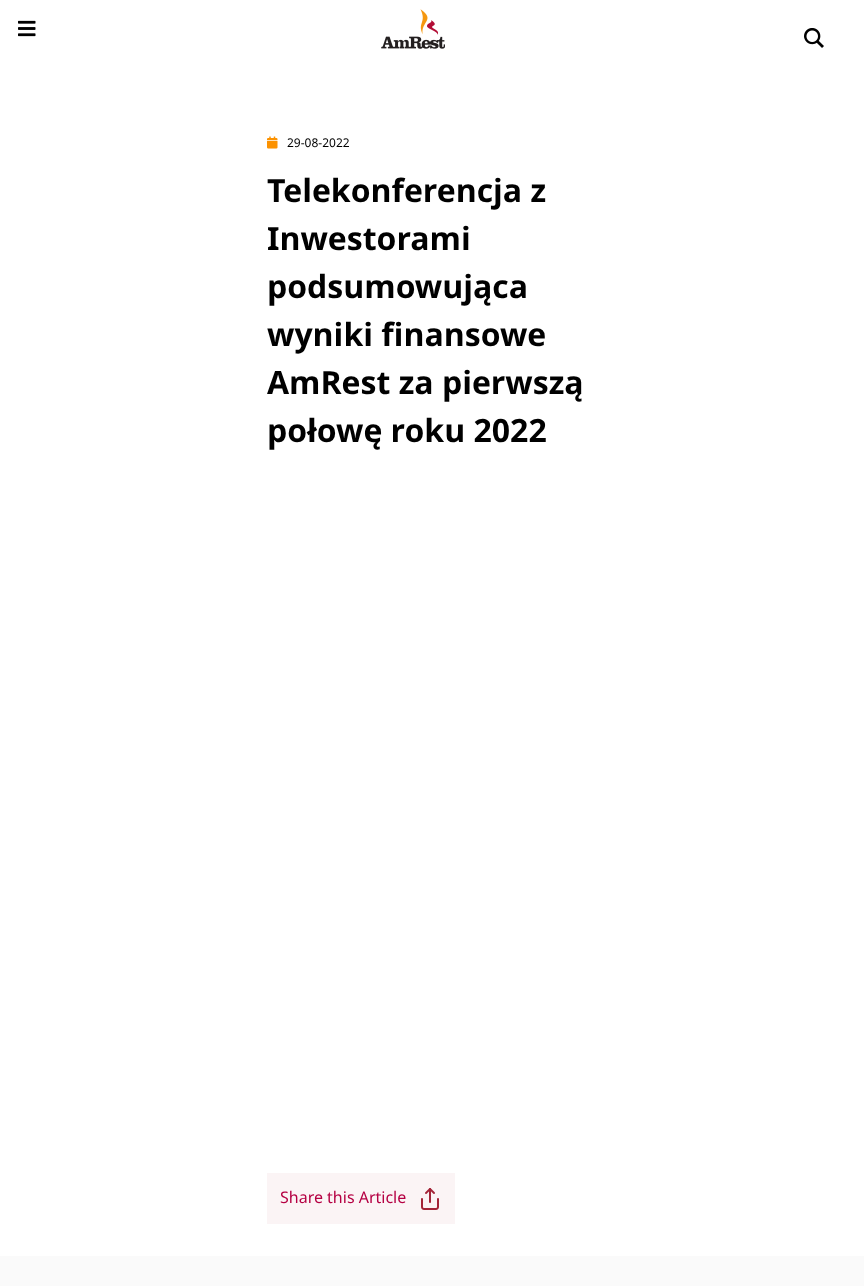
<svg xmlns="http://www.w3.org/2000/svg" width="864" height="1286">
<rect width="100%" height="100%" fill="#fff"/>
<image x="18" y="20" width="18" height="17" href="media/1.png"/>
<image x="381" y="9" width="64" height="40" href="media/2.png"/>
<image x="804" y="28" width="20" height="20" href="media/3.png"/>
<image x="267" y="136" width="11" height="13" href="media/4.png"/>
<text x="287" y="147" style="font-family:Noto Sans;font-size:12px;fill:#000">29-08-2022</text>
<text x="267" y="202" style="font-family:Noto Sans;font-size:32px;font-weight:bold;fill:#000">Telekonferencja z</text>
<text x="267" y="250" style="font-family:Noto Sans;font-size:32px;font-weight:bold;fill:#000">Inwestorami</text>
<text x="267" y="298" style="font-family:Noto Sans;font-size:32px;font-weight:bold;fill:#000">podsumowująca</text>
<text x="267" y="346" style="font-family:Noto Sans;font-size:32px;font-weight:bold;fill:#000">wyniki finansowe</text>
<text x="267" y="394" style="font-family:Noto Sans;font-size:32px;font-weight:bold;fill:#000">AmRest za pierwszą</text>
<text x="267" y="442" style="font-family:Noto Sans;font-size:32px;font-weight:bold;fill:#000">połowę roku 2022</text>
<rect x="267" y="1173" width="188" height="51" fill="#fbf4f5"/>
<text x="280" y="1203" style="font-family:Noto Sans;font-size:16px;fill:#b50043">Share this Article</text>
<image x="421" y="1188" width="18" height="22" href="media/5.png"/>
<rect y="1256" width="864" height="30" fill="#fafafa"/>
</svg>
